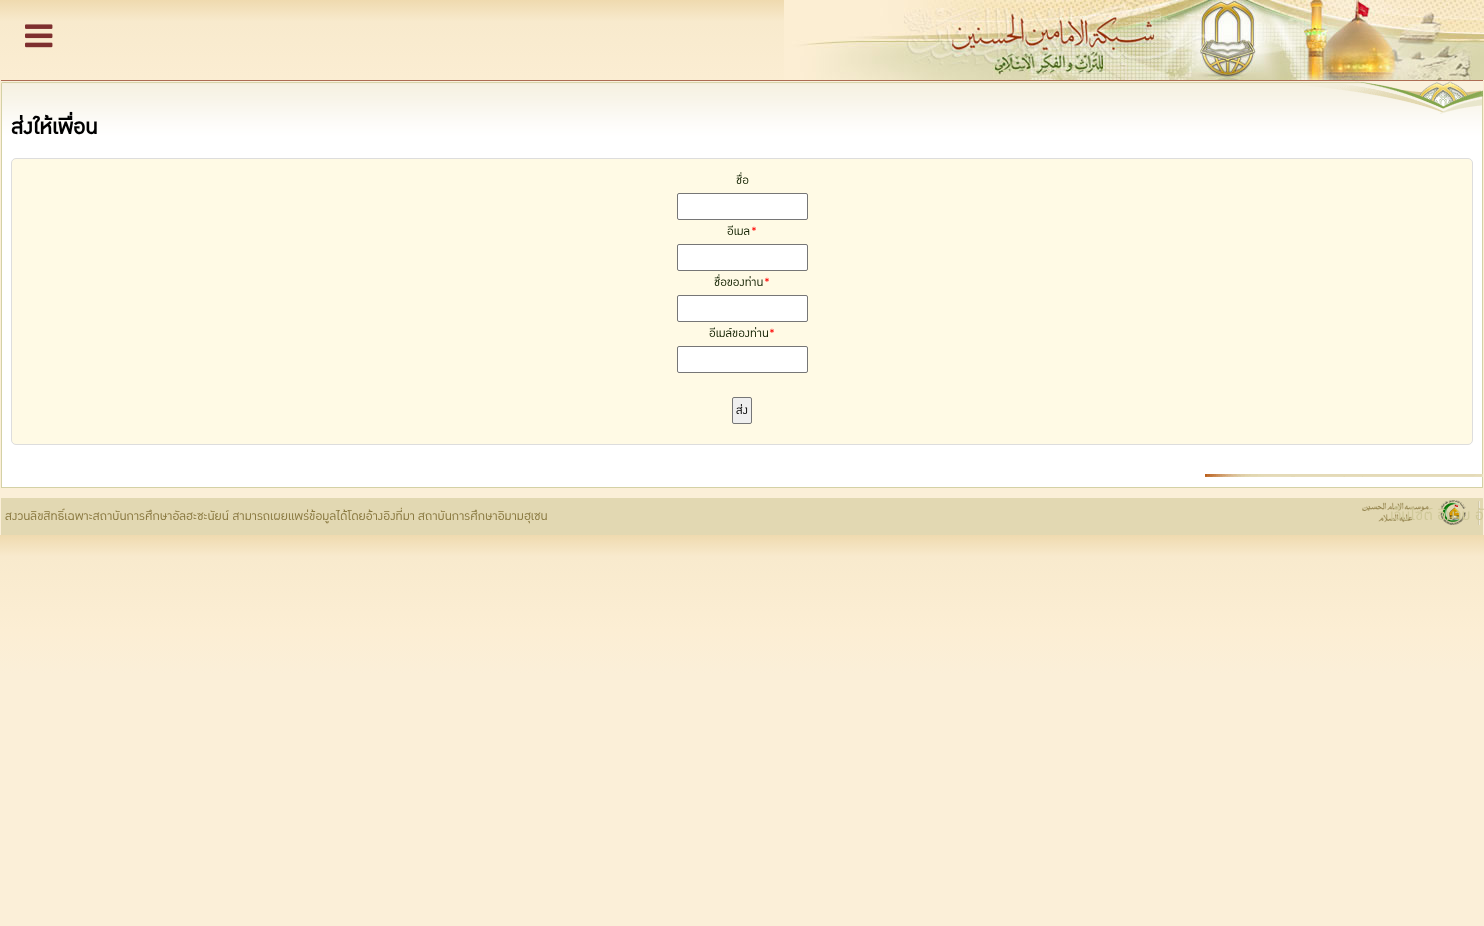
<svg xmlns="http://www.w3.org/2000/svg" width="1484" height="926">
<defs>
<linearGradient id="g1" gradientUnits="userSpaceOnUse" x1="742" y1="0" x2="742" y2="535"><stop offset="0" stop-color="#efdaaf"/><stop offset="0.04" stop-color="#f8eacd"/><stop offset="0.18" stop-color="#fceed4"/><stop offset="0.26" stop-color="#fbefd8"/><stop offset="1" stop-color="#fbefd8"/></linearGradient>
<linearGradient id="g2" gradientUnits="userSpaceOnUse" x1="742" y1="535" x2="742" y2="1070"><stop offset="0" stop-color="#efdaaf"/><stop offset="0.04" stop-color="#f8eacd"/><stop offset="0.18" stop-color="#fceed4"/><stop offset="0.26" stop-color="#fbefd8"/><stop offset="1" stop-color="#fbefd8"/></linearGradient>
</defs>
<rect width="100%" height="100%" fill="#fff"/>
<rect width="1484" height="535" fill="url(#g1)"/>
<rect y="535" width="1484" height="391" fill="url(#g2)"/>
<image x="25" y="24" width="28" height="24" href="media/1.png"/>
<image x="784" y="0" width="700" height="80" href="media/2.png"/>
<rect x="1" y="80" width="1482" height="1" fill="#ad6c53"/>
<rect x="51" y="445" width="442" height="42" fill="#fff"/>
<image x="1" y="81" width="1482" height="406" href="media/3.png"/>
<rect x="1" y="487" width="1482" height="1" fill="#d4d1a5"/>
<text x="11" y="134" style="font-family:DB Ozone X;font-size:29px;font-weight:bold;fill:#000">ส่งให้เพื่อน</text>
<rect x="11.5" y="158.5" width="1461" height="286" rx="4.5" fill="#fffae5" stroke="#ddd"/>
<text x="736" y="184" style="font-family:DB Ozone X;font-size:16px;fill:#122101">ชื่อ</text>
<rect x="677.5" y="193.5" width="130" height="26" rx="1.5" fill="#fff" stroke="#767676"/>
<text x="727" y="235" style="font-family:DB Ozone X;font-size:16px;fill:#122101">อีเมล</text>
<text x="751" y="235" style="font-family:DB Ozone X;font-size:16px;fill:#f00">*</text>
<rect x="677.5" y="244.5" width="130" height="26" rx="1.5" fill="#fff" stroke="#767676"/>
<text x="714" y="286" style="font-family:DB Ozone X;font-size:16px;fill:#122101">ชื่อของท่าน</text>
<text x="764" y="286" style="font-family:DB Ozone X;font-size:16px;fill:#f00">*</text>
<rect x="677.5" y="295.5" width="130" height="26" rx="1.5" fill="#fff" stroke="#767676"/>
<text x="709" y="337" style="font-family:DB Ozone X;font-size:16px;fill:#122101">อีเมล์ของท่าน</text>
<text x="769" y="337" style="font-family:DB Ozone X;font-size:16px;fill:#f00">*</text>
<rect x="677.5" y="346.5" width="130" height="26" rx="1.5" fill="#fff" stroke="#767676"/>
<rect x="732.5" y="397.5" width="19" height="26" rx="1.5" fill="#efefef" stroke="#767676"/>
<text x="736" y="414" style="font-family:DB Ozone X;font-size:16px;fill:#000">ส่ง</text>
<rect x="1" y="498" width="1482" height="37" fill="#e2d8b2"/>
<text x="5" y="520" style="font-family:DB Ozone X;font-size:16.6px;fill:#89783f">สงวนลิขสิทธิ์เฉพาะสถาบันการศึกษาอัลฮะซะนัยน์ สามารถเผยแพร่ข้อมูลได้โดยอ้างอิงที่มา</text>
<text x="418" y="520" style="font-family:DB Ozone X;font-size:16.6px;fill:#89783f">สถาบันการศึกษาอิมามฮุเซน</text>
<image x="1362" y="500" width="118" height="25" href="media/4.png"/>
<text x="1390" y="520" style="font-family:DB Ozone X;font-size:21px;fill:#cfc899">เว็บไซต์ อิมาม อัล</text>
</svg>
